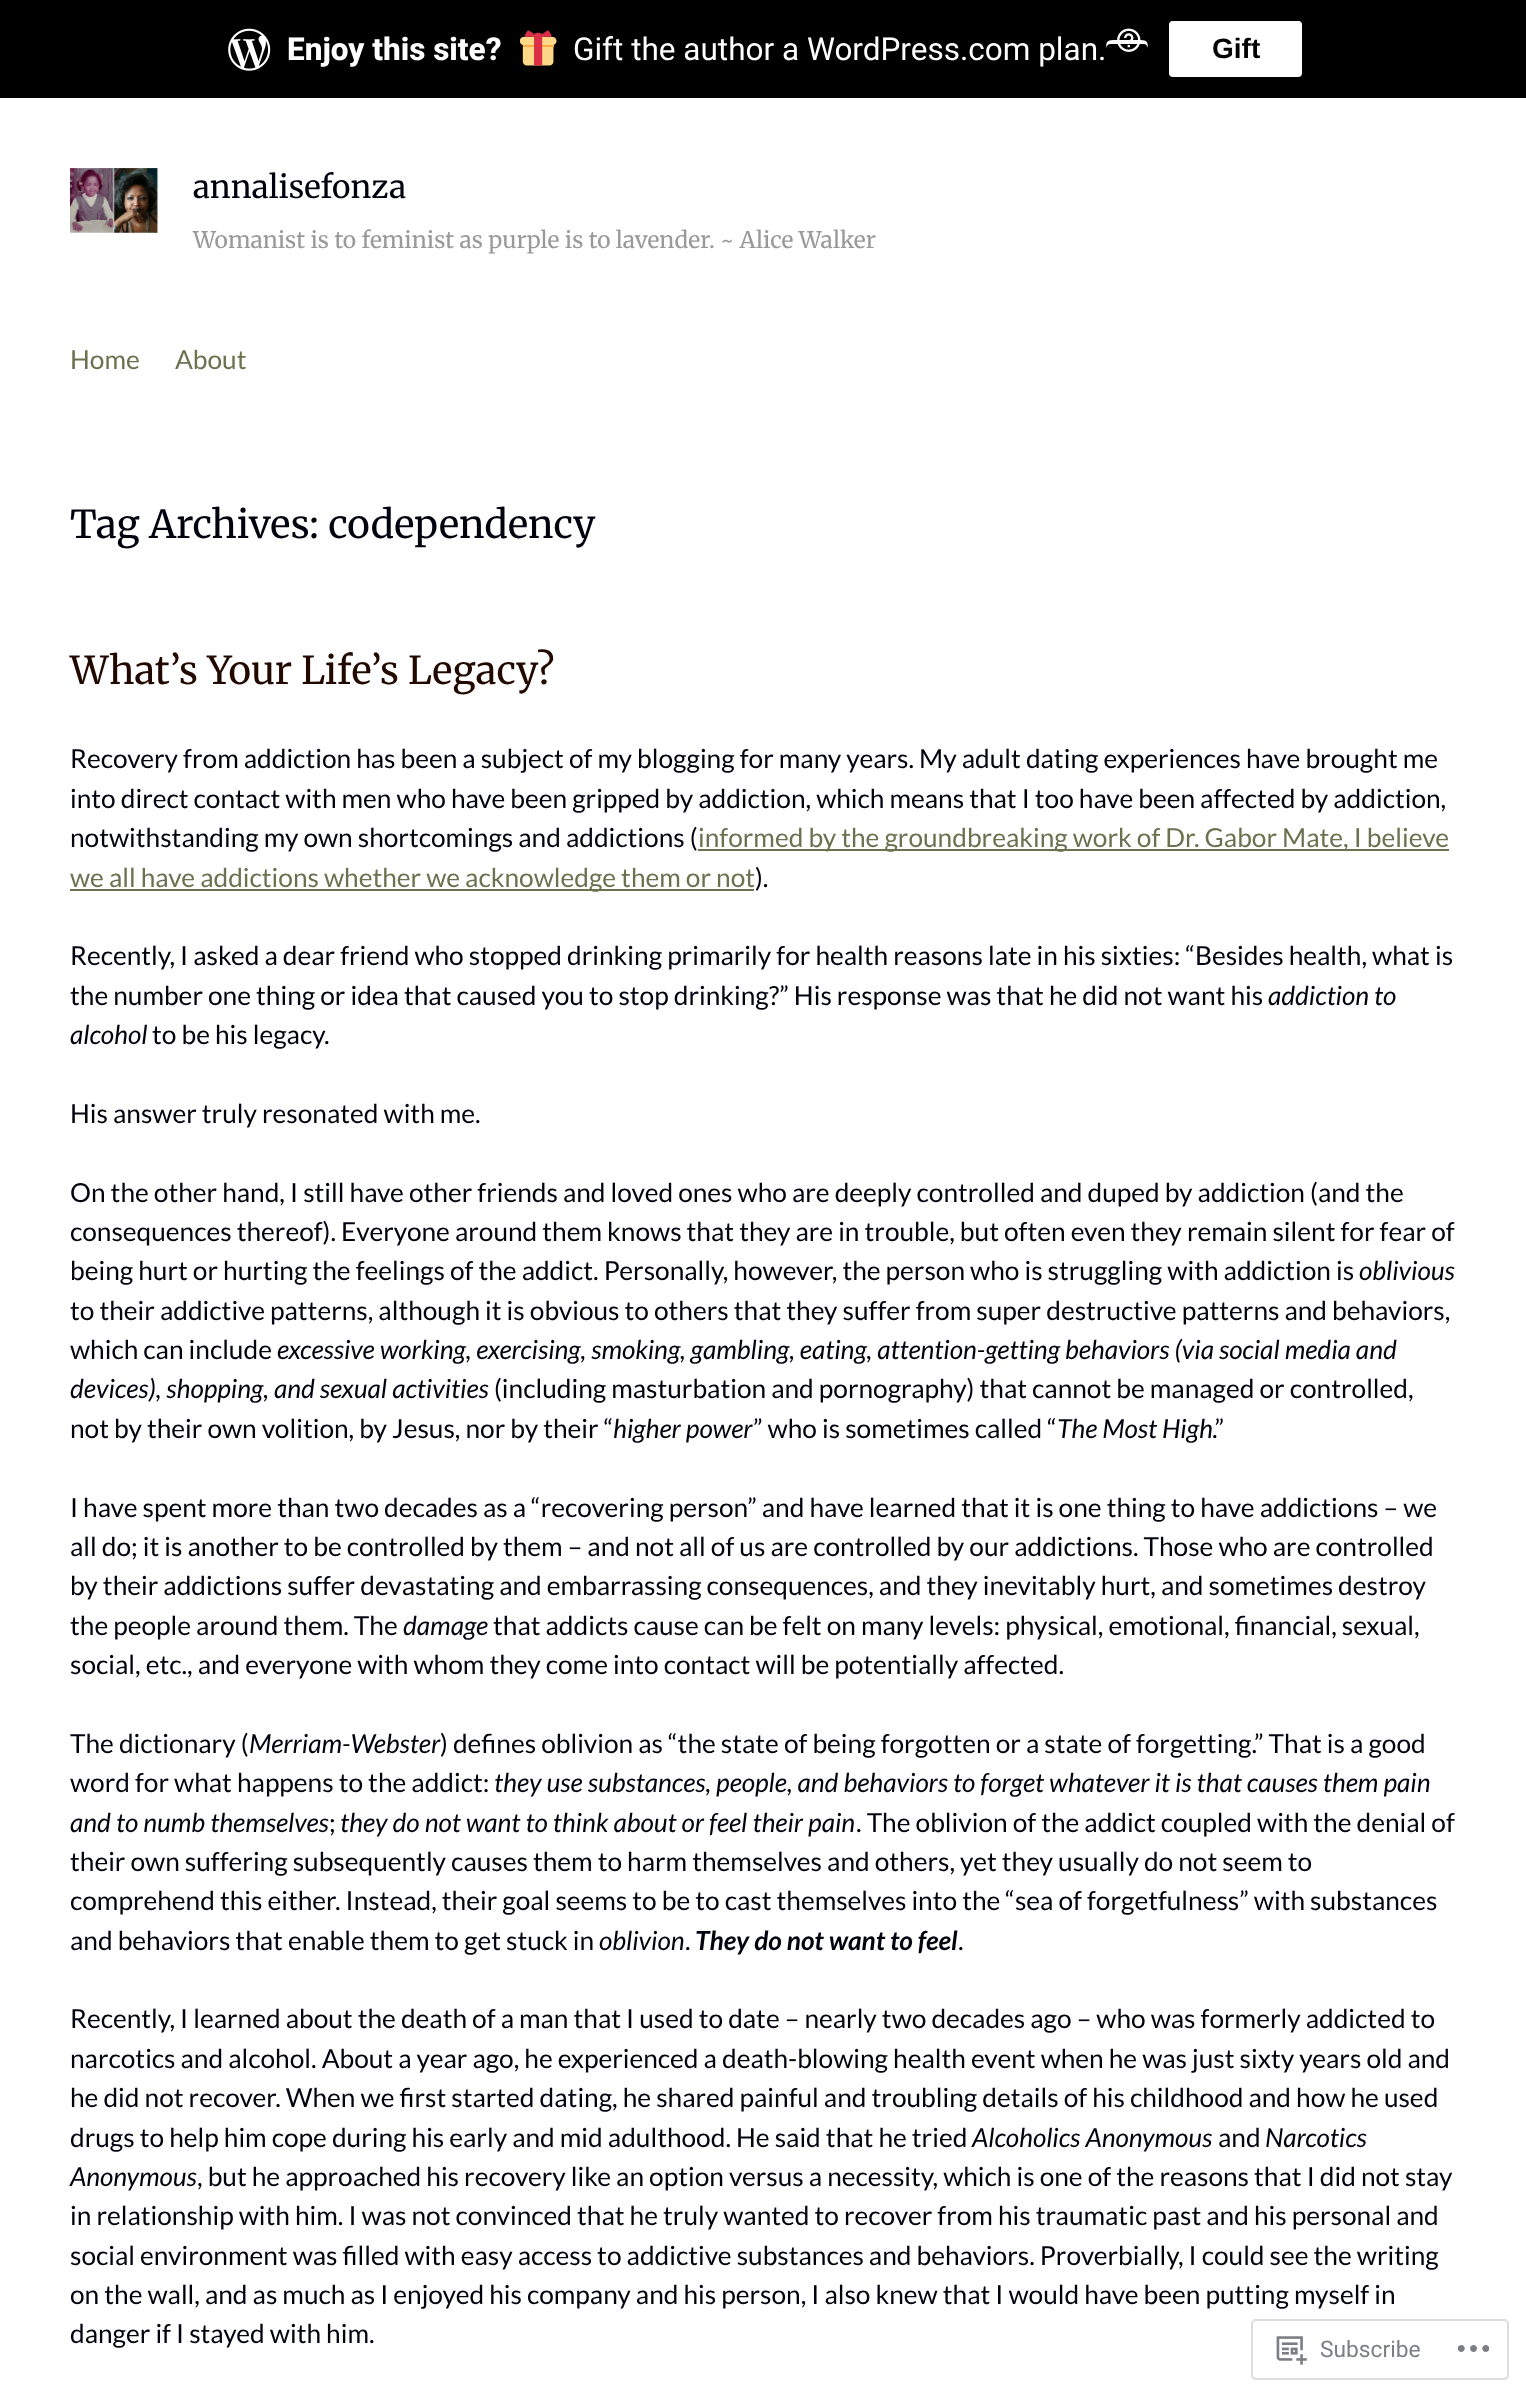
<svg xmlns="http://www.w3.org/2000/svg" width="1526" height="2396">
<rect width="100%" height="100%" fill="#000"/>
<image x="228" y="28" width="43" height="43" href="media/1.png"/>
<text x="287" y="60" style="font-family:Roboto;font-size:31.5px;font-weight:800;fill:#fff">Enjoy this site?</text>
<image x="520" y="30" width="37" height="36" href="media/2.png"/>
<text x="573" y="60" style="font-family:Roboto;font-size:31.5px;fill:#fff">Gift the author a WordPress.com plan.</text>
<path d="M1111 44h32c3 0 5 2 5 5c0-9-2-9-10-9h-22c-8 0-10 0-10 9c0-3 2-5 5-5z" fill="#fff"/>
<image x="1117" y="28" width="24" height="24" href="media/3.png"/>
<rect x="1169" y="21" width="133" height="56" rx="4" fill="#fff"/>
<path d="M1172 24h126c2 0 4 2 4 4v-3c0-2-2-4-4-4h-125c-2 0-4 2-4 4v3c0-2 2-4 3-4z" fill="#fff"/>
<text x="1212" y="58" style="font-family:Liberation Sans;font-size:28px;font-weight:bold;fill:#000">Gift</text>
<rect y="98" width="1526" height="2298" fill="#fff"/>
<image x="70" y="168" width="88" height="65" href="media/4.png"/>
<text x="193" y="198" style="font-family:Merriweather;font-size:31.5px;font-weight:300;fill:#00020e">annalisefonza</text>
<text x="193" y="248" style="font-family:Merriweather;font-size:22.75px;font-weight:300;fill:#999">Womanist is to feminist as purple is to lavender. ~ Alice Walker</text>
<text x="70" y="369" style="font-family:Lato;font-size:26.25px;fill:#6c724f">Home</text>
<text x="175" y="369" style="font-family:Lato;font-size:26.25px;fill:#6c724f">About</text>
<text x="70" y="538" style="font-family:Merriweather;font-size:38.5px;font-weight:300;fill:#00020e">Tag Archives: codependency</text>
<text x="70" y="684" style="font-family:Merriweather;font-size:38.5px;font-weight:300;fill:#220900">What’s Your Life’s Legacy?</text>
<text x="70" y="768" style="font-family:Lato;font-size:26.25px;fill:#00020e">Recovery from addiction has been a subject of my blogging for many years. My adult dating experiences have brought me</text>
<text x="70" y="808" style="font-family:Lato;font-size:26.25px;fill:#00020e">into direct contact with men who have been gripped by addiction, which means that I too have been affected by addiction,</text>
<text x="70" y="847" style="font-family:Lato;font-size:26.25px;fill:#00020e">notwithstanding my own shortcomings and addictions (</text>
<rect x="698" y="849" width="751" height="2" fill="#6c724f"/>
<text x="698" y="847" style="font-family:Lato;font-size:26.25px;fill:#6c724f">informed by the groundbreaking work of Dr. Gabor Mate, I believe</text>
<rect x="70" y="889" width="684" height="2" fill="#6c724f"/>
<text x="70" y="887" style="font-family:Lato;font-size:26.25px;fill:#6c724f">we all have addictions whether we acknowledge them or not</text>
<text x="755" y="887" style="font-family:Lato;font-size:26.25px;fill:#00020e">).</text>
<text x="70" y="965" style="font-family:Lato;font-size:26.25px;fill:#00020e">Recently, I asked a dear friend who stopped drinking primarily for health reasons late in his sixties: “Besides health, what is</text>
<text x="70" y="1005" style="font-family:Lato;font-size:26.25px;fill:#00020e">the number one thing or idea that caused you to stop drinking?” His response was that he did not want his</text>
<text x="1268" y="1005" style="font-family:Lato;font-size:26.25px;font-style:italic;fill:#00020e">addiction to</text>
<text x="70" y="1044" style="font-family:Lato;font-size:26.25px;font-style:italic;fill:#00020e">alcohol</text>
<text x="152" y="1044" style="font-family:Lato;font-size:26.25px;fill:#00020e">to be his legacy.</text>
<text x="70" y="1123" style="font-family:Lato;font-size:26.25px;fill:#00020e">His answer truly resonated with me.</text>
<text x="70" y="1202" style="font-family:Lato;font-size:26.25px;fill:#00020e">On the other hand, I still have other friends and loved ones who are deeply controlled and duped by addiction (and the</text>
<text x="70" y="1241" style="font-family:Lato;font-size:26.25px;fill:#00020e">consequences thereof). Everyone around them knows that they are in trouble, but often even they remain silent for fear of</text>
<text x="70" y="1280" style="font-family:Lato;font-size:26.25px;fill:#00020e">being hurt or hurting the feelings of the addict. Personally, however, the person who is struggling with addiction is</text>
<text x="1359" y="1280" style="font-family:Lato;font-size:26.25px;font-style:italic;fill:#00020e">oblivious</text>
<text x="70" y="1320" style="font-family:Lato;font-size:26.25px;fill:#00020e">to their addictive patterns, although it is obvious to others that they suffer from super destructive patterns and behaviors,</text>
<text x="70" y="1359" style="font-family:Lato;font-size:26.25px;fill:#00020e">which can include</text>
<text x="277" y="1359" style="font-family:Lato;font-size:26.25px;font-style:italic;fill:#00020e">excessive working, exercising, smoking, gambling, eating, attention-getting behaviors (via social media and</text>
<text x="70" y="1398" style="font-family:Lato;font-size:26.25px;font-style:italic;fill:#00020e">devices), shopping, and sexual activities</text>
<text x="494" y="1398" style="font-family:Lato;font-size:26.25px;fill:#00020e">(including masturbation and pornography) that cannot be managed or controlled,</text>
<text x="70" y="1438" style="font-family:Lato;font-size:26.25px;fill:#00020e">not by their own volition, by Jesus, nor by their “</text>
<text x="613" y="1438" style="font-family:Lato;font-size:26.25px;font-style:italic;fill:#00020e">higher power</text>
<text x="753" y="1438" style="font-family:Lato;font-size:26.25px;fill:#00020e">” who is sometimes called “</text>
<text x="1057" y="1438" style="font-family:Lato;font-size:26.25px;font-style:italic;fill:#00020e">The Most High</text>
<text x="1212" y="1438" style="font-family:Lato;font-size:26.25px;fill:#00020e">.”</text>
<text x="70" y="1517" style="font-family:Lato;font-size:26.25px;fill:#00020e">I have spent more than two decades as a “recovering person” and have learned that it is one thing to have addictions – we</text>
<text x="70" y="1556" style="font-family:Lato;font-size:26.25px;fill:#00020e">all do; it is another to be controlled by them – and not all of us are controlled by our addictions. Those who are controlled</text>
<text x="70" y="1595" style="font-family:Lato;font-size:26.25px;fill:#00020e">by their addictions suffer devastating and embarrassing consequences, and they inevitably hurt, and sometimes destroy</text>
<text x="70" y="1635" style="font-family:Lato;font-size:26.25px;fill:#00020e">the people around them. The</text>
<text x="403" y="1635" style="font-family:Lato;font-size:26.25px;font-style:italic;fill:#00020e">damage</text>
<text x="493" y="1635" style="font-family:Lato;font-size:26.25px;fill:#00020e">that addicts cause can be felt on many levels: physical, emotional, financial, sexual,</text>
<text x="70" y="1674" style="font-family:Lato;font-size:26.25px;fill:#00020e">social, etc., and everyone with whom they come into contact will be potentially affected.</text>
<text x="70" y="1753" style="font-family:Lato;font-size:26.25px;fill:#00020e">The dictionary (</text>
<text x="249" y="1753" style="font-family:Lato;font-size:26.25px;font-style:italic;fill:#00020e">Merriam-Webster</text>
<text x="440" y="1753" style="font-family:Lato;font-size:26.25px;fill:#00020e">) defines oblivion as “the state of being forgotten or a state of forgetting.” That is a good</text>
<text x="70" y="1792" style="font-family:Lato;font-size:26.25px;fill:#00020e">word for what happens to the addict:</text>
<text x="494" y="1792" style="font-family:Lato;font-size:26.25px;font-style:italic;fill:#00020e">they use substances, people, and behaviors to forget whatever it is that causes them pain</text>
<text x="70" y="1832" style="font-family:Lato;font-size:26.25px;font-style:italic;fill:#00020e">and to numb themselves</text>
<text x="329" y="1832" style="font-family:Lato;font-size:26.25px;fill:#00020e">;</text>
<text x="340" y="1832" style="font-family:Lato;font-size:26.25px;font-style:italic;fill:#00020e">they do not want to think about or feel their pain</text>
<text x="856" y="1832" style="font-family:Lato;font-size:26.25px;fill:#00020e">. The oblivion of the addict coupled with the denial of</text>
<text x="70" y="1871" style="font-family:Lato;font-size:26.25px;fill:#00020e">their own suffering subsequently causes them to harm themselves and others, yet they usually do not seem to</text>
<text x="70" y="1910" style="font-family:Lato;font-size:26.25px;fill:#00020e">comprehend this either. Instead, their goal seems to be to cast themselves into the “sea of forgetfulness” with substances</text>
<text x="70" y="1950" style="font-family:Lato;font-size:26.25px;fill:#00020e">and behaviors that enable them to get stuck in</text>
<text x="599" y="1950" style="font-family:Lato;font-size:26.25px;font-style:italic;fill:#00020e">oblivion</text>
<text x="685" y="1950" style="font-family:Lato;font-size:26.25px;fill:#00020e">.</text>
<text x="695" y="1950" style="font-family:Lato;font-size:26.25px;font-weight:bold;font-style:italic;fill:#00020e">They do not want to feel</text>
<text x="958" y="1950" style="font-family:Lato;font-size:26.25px;fill:#00020e">.</text>
<text x="70" y="2028" style="font-family:Lato;font-size:26.25px;fill:#00020e">Recently, I learned about the death of a man that I used to date – nearly two decades ago – who was formerly addicted to</text>
<text x="70" y="2068" style="font-family:Lato;font-size:26.25px;fill:#00020e">narcotics and alcohol. About a year ago, he experienced a death-blowing health event when he was just sixty years old and</text>
<text x="70" y="2107" style="font-family:Lato;font-size:26.25px;fill:#00020e">he did not recover. When we first started dating, he shared painful and troubling details of his childhood and how he used</text>
<text x="70" y="2147" style="font-family:Lato;font-size:26.25px;fill:#00020e">drugs to help him cope during his early and mid adulthood. He said that he tried</text>
<text x="972" y="2147" style="font-family:Lato;font-size:26.25px;font-style:italic;fill:#00020e">Alcoholics Anonymous</text>
<text x="1218" y="2147" style="font-family:Lato;font-size:26.25px;fill:#00020e">and</text>
<text x="1265" y="2147" style="font-family:Lato;font-size:26.25px;font-style:italic;fill:#00020e">Narcotics</text>
<text x="70" y="2186" style="font-family:Lato;font-size:26.25px;font-style:italic;fill:#00020e">Anonymous</text>
<text x="197" y="2186" style="font-family:Lato;font-size:26.25px;fill:#00020e">, but he approached his recovery like an option versus a necessity, which is one of the reasons that I did not stay</text>
<text x="70" y="2225" style="font-family:Lato;font-size:26.25px;fill:#00020e">in relationship with him. I was not convinced that he truly wanted to recover from his traumatic past and his personal and</text>
<text x="70" y="2265" style="font-family:Lato;font-size:26.25px;fill:#00020e">social environment was filled with easy access to addictive substances and behaviors. Proverbially, I could see the writing</text>
<text x="70" y="2304" style="font-family:Lato;font-size:26.25px;fill:#00020e">on the wall, and as much as I enjoyed his company and his person, I also knew that I would have been putting myself in</text>
<text x="70" y="2343" style="font-family:Lato;font-size:26.25px;fill:#00020e">danger if I stayed with him.</text>
<rect x="1252" y="2320" width="256" height="59" rx="4" fill="none" stroke="#dddddf" stroke-width="2"/>
<image x="1276" y="2336" width="31" height="29" href="media/5.png"/>
<text x="1320" y="2357" style="font-family:Roboto;font-size:22.75px;fill:#7b7f85">Subscribe</text>
<image x="1457" y="2345" width="33" height="7" href="media/6.png"/>
</svg>
